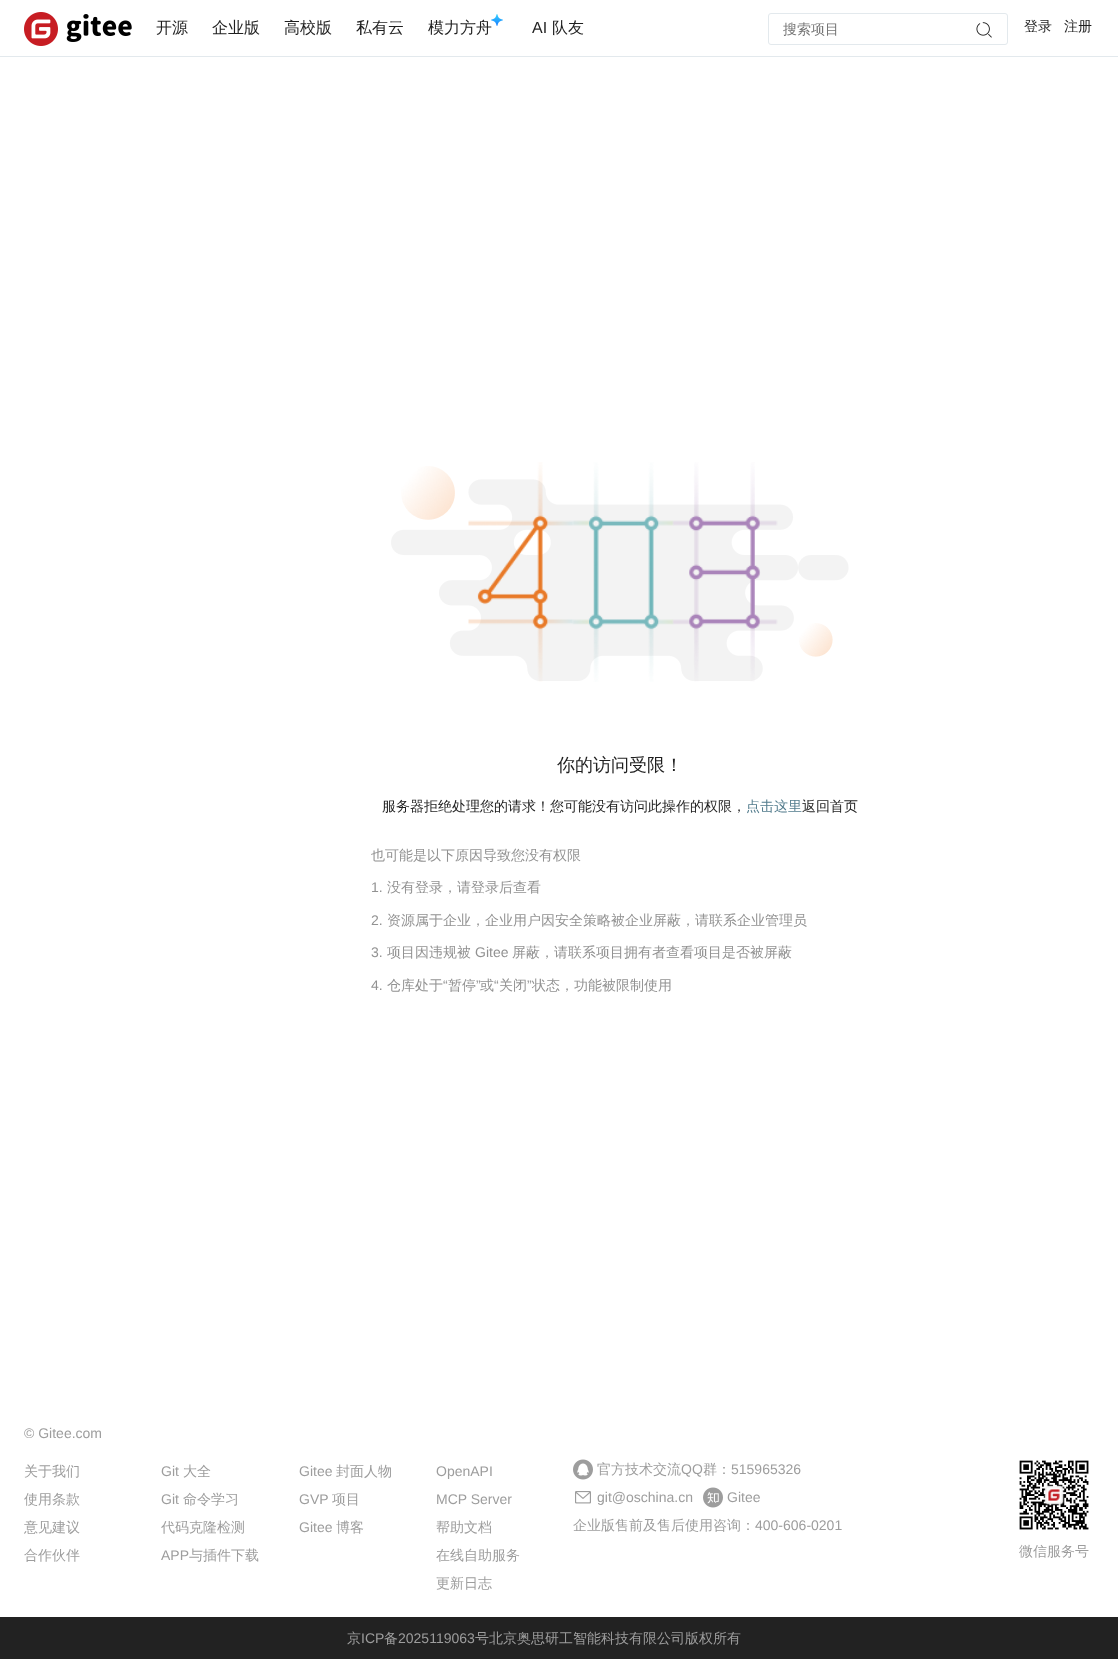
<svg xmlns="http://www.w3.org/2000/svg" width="1118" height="1659">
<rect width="100%" height="100%" fill="#fff"/>
<rect y="56" width="1118" height="1" fill="#e3e9ed"/>
<image x="24" y="12" width="108" height="34" href="media/1.png"/>
<text x="156" y="33" style="font-family:WenQuanYi Zen Hei;font-size:16px;font-weight:500;fill:#1f1f1f">开源</text>
<text x="212" y="33" style="font-family:WenQuanYi Zen Hei;font-size:16px;font-weight:500;fill:#1f1f1f">企业版</text>
<text x="284" y="33" style="font-family:WenQuanYi Zen Hei;font-size:16px;font-weight:500;fill:#1f1f1f">高校版</text>
<text x="356" y="33" style="font-family:WenQuanYi Zen Hei;font-size:16px;font-weight:500;fill:#1f1f1f">私有云</text>
<text x="428" y="33" style="font-family:WenQuanYi Zen Hei;font-size:16px;font-weight:500;fill:#1f1f1f">模力方舟</text>
<image x="491" y="14" width="12" height="12" href="media/2.png"/>
<text x="532" y="33" style="font-family:Liberation Sans;font-size:16px;fill:#1f1f1f">AI</text>
<text x="552" y="33" style="font-family:WenQuanYi Zen Hei;font-size:16px;font-weight:500;fill:#1f1f1f">队友</text>
<rect x="768.5" y="13.5" width="239" height="31" rx="2.5" fill="none" stroke="#e3e9ed"/>
<text x="783" y="34" style="font-family:WenQuanYi Zen Hei;font-size:14px;font-weight:500;fill:#757575">搜索项目</text>
<image x="976" y="22" width="16" height="16" href="media/3.png"/>
<text x="1024" y="31" style="font-family:WenQuanYi Zen Hei;font-size:14px;font-weight:500;fill:#1f1f1f">登录</text>
<text x="1064" y="31" style="font-family:WenQuanYi Zen Hei;font-size:14px;font-weight:500;fill:#1f1f1f">注册</text>
<image x="391" y="466" width="458" height="215" href="media/4.png"/>
<image x="468" y="462" width="310" height="220" href="media/5.png"/>
<text x="557" y="771" style="font-family:WenQuanYi Zen Hei;font-size:18px;font-weight:500;fill:#1f1f1f">你的访问受限！</text>
<text x="382" y="811" style="font-family:WenQuanYi Zen Hei;font-size:14px;font-weight:500;fill:#1f1f1f">服务器拒绝处理您的请求！您可能没有访问此操作的权限，</text>
<text x="746" y="811" style="font-family:WenQuanYi Zen Hei;font-size:14px;font-weight:500;fill:#537c8d">点击这里</text>
<text x="802" y="811" style="font-family:WenQuanYi Zen Hei;font-size:14px;font-weight:500;fill:#1f1f1f">返回首页</text>
<text x="371" y="860" style="font-family:WenQuanYi Zen Hei;font-size:14px;font-weight:500;fill:#929292">也可能是以下原因导致您没有权限</text>
<text x="371" y="892" style="font-family:Liberation Sans;font-size:14px;fill:#929292">1.</text>
<text x="387" y="892" style="font-family:WenQuanYi Zen Hei;font-size:14px;font-weight:500;fill:#929292">没有登录，请登录后查看</text>
<text x="371" y="925" style="font-family:Liberation Sans;font-size:14px;fill:#929292">2.</text>
<text x="387" y="925" style="font-family:WenQuanYi Zen Hei;font-size:14px;font-weight:500;fill:#929292">资源属于企业，企业用户因安全策略被企业屏蔽，请联系企业管理员</text>
<text x="371" y="957" style="font-family:Liberation Sans;font-size:14px;fill:#929292">3.</text>
<text x="387" y="957" style="font-family:WenQuanYi Zen Hei;font-size:14px;font-weight:500;fill:#929292">项目因违规被</text>
<text x="475" y="957" style="font-family:Liberation Sans;font-size:14px;fill:#929292">Gitee</text>
<text x="512" y="957" style="font-family:WenQuanYi Zen Hei;font-size:14px;font-weight:500;fill:#929292">屏蔽，请联系项目拥有者查看项目是否被屏蔽</text>
<text x="371" y="990" style="font-family:Liberation Sans;font-size:14px;fill:#929292">4.</text>
<text x="387" y="990" style="font-family:WenQuanYi Zen Hei;font-size:14px;font-weight:500;fill:#929292">仓库处于</text>
<text x="443" y="990" style="font-family:Liberation Sans;font-size:14px;fill:#929292">“</text>
<text x="448" y="990" style="font-family:WenQuanYi Zen Hei;font-size:14px;font-weight:500;fill:#929292">暂停</text>
<text x="476" y="990" style="font-family:Liberation Sans;font-size:14px;fill:#929292">”</text>
<text x="480" y="990" style="font-family:WenQuanYi Zen Hei;font-size:14px;font-weight:500;fill:#929292">或</text>
<text x="494" y="990" style="font-family:Liberation Sans;font-size:14px;fill:#929292">“</text>
<text x="499" y="990" style="font-family:WenQuanYi Zen Hei;font-size:14px;font-weight:500;fill:#929292">关闭</text>
<text x="527" y="990" style="font-family:Liberation Sans;font-size:14px;fill:#929292">”</text>
<text x="532" y="990" style="font-family:WenQuanYi Zen Hei;font-size:14px;font-weight:500;fill:#929292">状态，功能被限制使用</text>
<text x="24" y="1438" style="font-family:Liberation Sans;font-size:14px;fill:#9d9d9d">© Gitee.com</text>
<text x="24" y="1476" style="font-family:WenQuanYi Zen Hei;font-size:14px;font-weight:500;fill:#9d9d9d">关于我们</text>
<text x="24" y="1504" style="font-family:WenQuanYi Zen Hei;font-size:14px;font-weight:500;fill:#9d9d9d">使用条款</text>
<text x="24" y="1532" style="font-family:WenQuanYi Zen Hei;font-size:14px;font-weight:500;fill:#9d9d9d">意见建议</text>
<text x="24" y="1560" style="font-family:WenQuanYi Zen Hei;font-size:14px;font-weight:500;fill:#9d9d9d">合作伙伴</text>
<text x="161" y="1476" style="font-family:Liberation Sans;font-size:14px;fill:#9d9d9d">Git</text>
<text x="183" y="1476" style="font-family:WenQuanYi Zen Hei;font-size:14px;font-weight:500;fill:#9d9d9d">大全</text>
<text x="161" y="1504" style="font-family:Liberation Sans;font-size:14px;fill:#9d9d9d">Git</text>
<text x="183" y="1504" style="font-family:WenQuanYi Zen Hei;font-size:14px;font-weight:500;fill:#9d9d9d">命令学习</text>
<text x="161" y="1532" style="font-family:WenQuanYi Zen Hei;font-size:14px;font-weight:500;fill:#9d9d9d">代码克隆检测</text>
<text x="161" y="1560" style="font-family:Liberation Sans;font-size:14px;fill:#9d9d9d">APP</text>
<text x="189" y="1560" style="font-family:WenQuanYi Zen Hei;font-size:14px;font-weight:500;fill:#9d9d9d">与插件下载</text>
<text x="299" y="1476" style="font-family:Liberation Sans;font-size:14px;fill:#9d9d9d">Gitee</text>
<text x="336" y="1476" style="font-family:WenQuanYi Zen Hei;font-size:14px;font-weight:500;fill:#9d9d9d">封面人物</text>
<text x="299" y="1504" style="font-family:Liberation Sans;font-size:14px;fill:#9d9d9d">GVP</text>
<text x="332" y="1504" style="font-family:WenQuanYi Zen Hei;font-size:14px;font-weight:500;fill:#9d9d9d">项目</text>
<text x="299" y="1532" style="font-family:Liberation Sans;font-size:14px;fill:#9d9d9d">Gitee</text>
<text x="336" y="1532" style="font-family:WenQuanYi Zen Hei;font-size:14px;font-weight:500;fill:#9d9d9d">博客</text>
<text x="436" y="1476" style="font-family:Liberation Sans;font-size:14px;fill:#9d9d9d">OpenAPI</text>
<text x="436" y="1504" style="font-family:Liberation Sans;font-size:14px;fill:#9d9d9d">MCP Server</text>
<text x="436" y="1532" style="font-family:WenQuanYi Zen Hei;font-size:14px;font-weight:500;fill:#9d9d9d">帮助文档</text>
<text x="436" y="1560" style="font-family:WenQuanYi Zen Hei;font-size:14px;font-weight:500;fill:#9d9d9d">在线自助服务</text>
<text x="436" y="1588" style="font-family:WenQuanYi Zen Hei;font-size:14px;font-weight:500;fill:#9d9d9d">更新日志</text>
<image x="573" y="1459" width="20" height="21" href="media/6.png"/>
<text x="597" y="1474" style="font-family:WenQuanYi Zen Hei;font-size:14px;font-weight:500;fill:#9d9d9d">官方技术交流</text>
<text x="681" y="1474" style="font-family:Liberation Sans;font-size:14px;fill:#9d9d9d">QQ</text>
<text x="703" y="1474" style="font-family:WenQuanYi Zen Hei;font-size:14px;font-weight:500;fill:#9d9d9d">群：</text>
<text x="731" y="1474" style="font-family:Liberation Sans;font-size:14px;fill:#9d9d9d">515965326</text>
<image x="575" y="1491" width="16" height="13" href="media/7.png"/>
<text x="597" y="1502" style="font-family:Liberation Sans;font-size:14px;fill:#9d9d9d">git@oschina.cn</text>
<image x="703" y="1487" width="20" height="21" href="media/8.png"/>
<text x="727" y="1502" style="font-family:Liberation Sans;font-size:14px;fill:#9d9d9d">Gitee</text>
<text x="573" y="1530" style="font-family:WenQuanYi Zen Hei;font-size:14px;font-weight:500;fill:#9d9d9d">企业版售前及售后使用咨询：</text>
<text x="755" y="1530" style="font-family:Liberation Sans;font-size:14px;fill:#9d9d9d">400-606-0201</text>
<image x="1019" y="1460" width="70" height="70" href="media/9.png"/>
<text x="1019" y="1556" style="font-family:WenQuanYi Zen Hei;font-size:14px;font-weight:500;fill:#9d9d9d">微信服务号</text>
<rect y="1617" width="1118" height="42" fill="#222"/>
<text x="347" y="1643" style="font-family:WenQuanYi Zen Hei;font-size:14px;font-weight:500;fill:#9d9d9d">京</text>
<text x="361" y="1643" style="font-family:Liberation Sans;font-size:14px;fill:#9d9d9d">ICP</text>
<text x="384" y="1643" style="font-family:WenQuanYi Zen Hei;font-size:14px;font-weight:500;fill:#9d9d9d">备</text>
<text x="398" y="1643" style="font-family:Liberation Sans;font-size:14px;fill:#9d9d9d">2025119063</text>
<text x="475" y="1643" style="font-family:WenQuanYi Zen Hei;font-size:14px;font-weight:500;fill:#9d9d9d">号北京奥思研工智能科技有限公司版权所有</text>
</svg>
